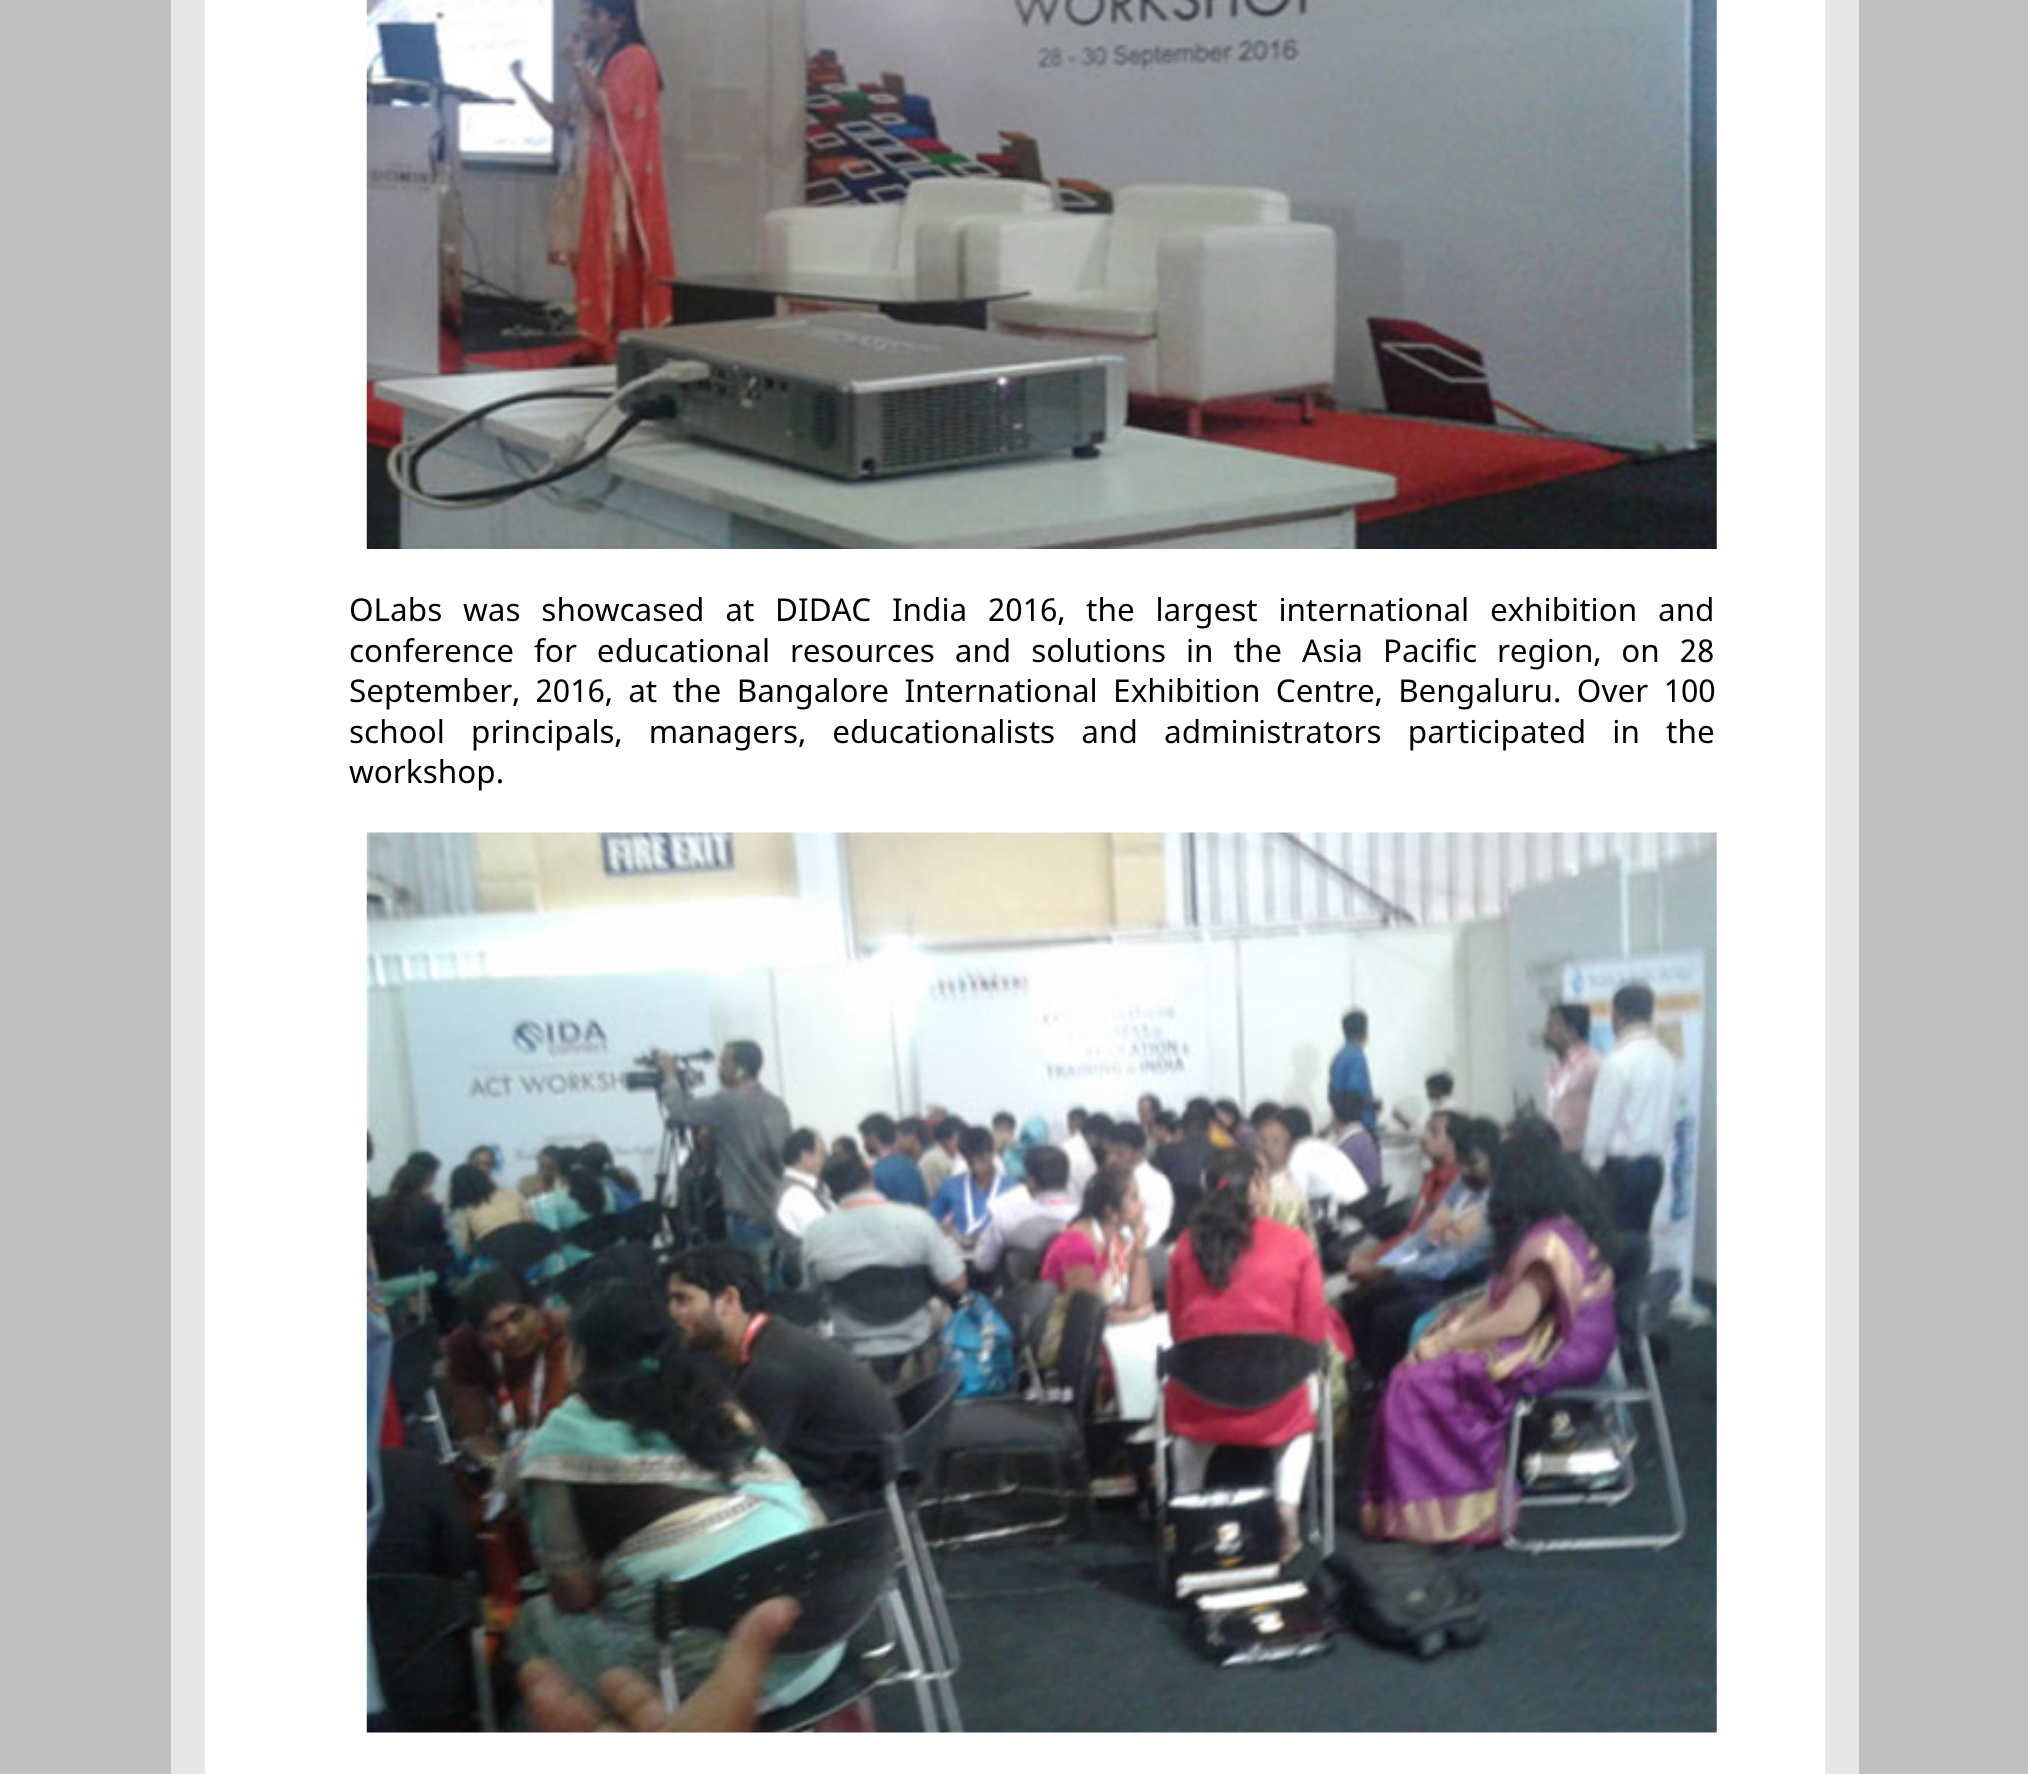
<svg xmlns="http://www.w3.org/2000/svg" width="2028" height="1774">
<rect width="100%" height="100%" fill="#c0c0c0"/>
<rect x="171" width="1688" height="1774" fill="#e8e8e8"/>
<rect x="205" width="1620" height="1774" fill="#fff"/>
<image x="366" y="0" width="1351" height="549" href="media/1.png"/>
<text x="349" y="621" word-spacing="12.6" style="font-family:Noto Sans;font-size:31.5px;fill:#000">OLabs was showcased at DIDAC India 2016, the largest international exhibition and</text>
<text x="349" y="662" word-spacing="11.75" style="font-family:Noto Sans;font-size:31.5px;fill:#000">conference for educational resources and solutions in the Asia Pacific region, on 28</text>
<text x="349" y="702" word-spacing="7.25" style="font-family:Noto Sans;font-size:31.5px;fill:#000">September, 2016, at the Bangalore International Exhibition Centre, Bengaluru. Over 100</text>
<text x="349" y="743" word-spacing="18" style="font-family:Noto Sans;font-size:31.5px;fill:#000">school principals, managers, educationalists and administrators participated in the</text>
<text x="349" y="783" style="font-family:Noto Sans;font-size:31.5px;fill:#000">workshop.</text>
<image x="366" y="832" width="1351" height="901" href="media/2.png"/>
</svg>
